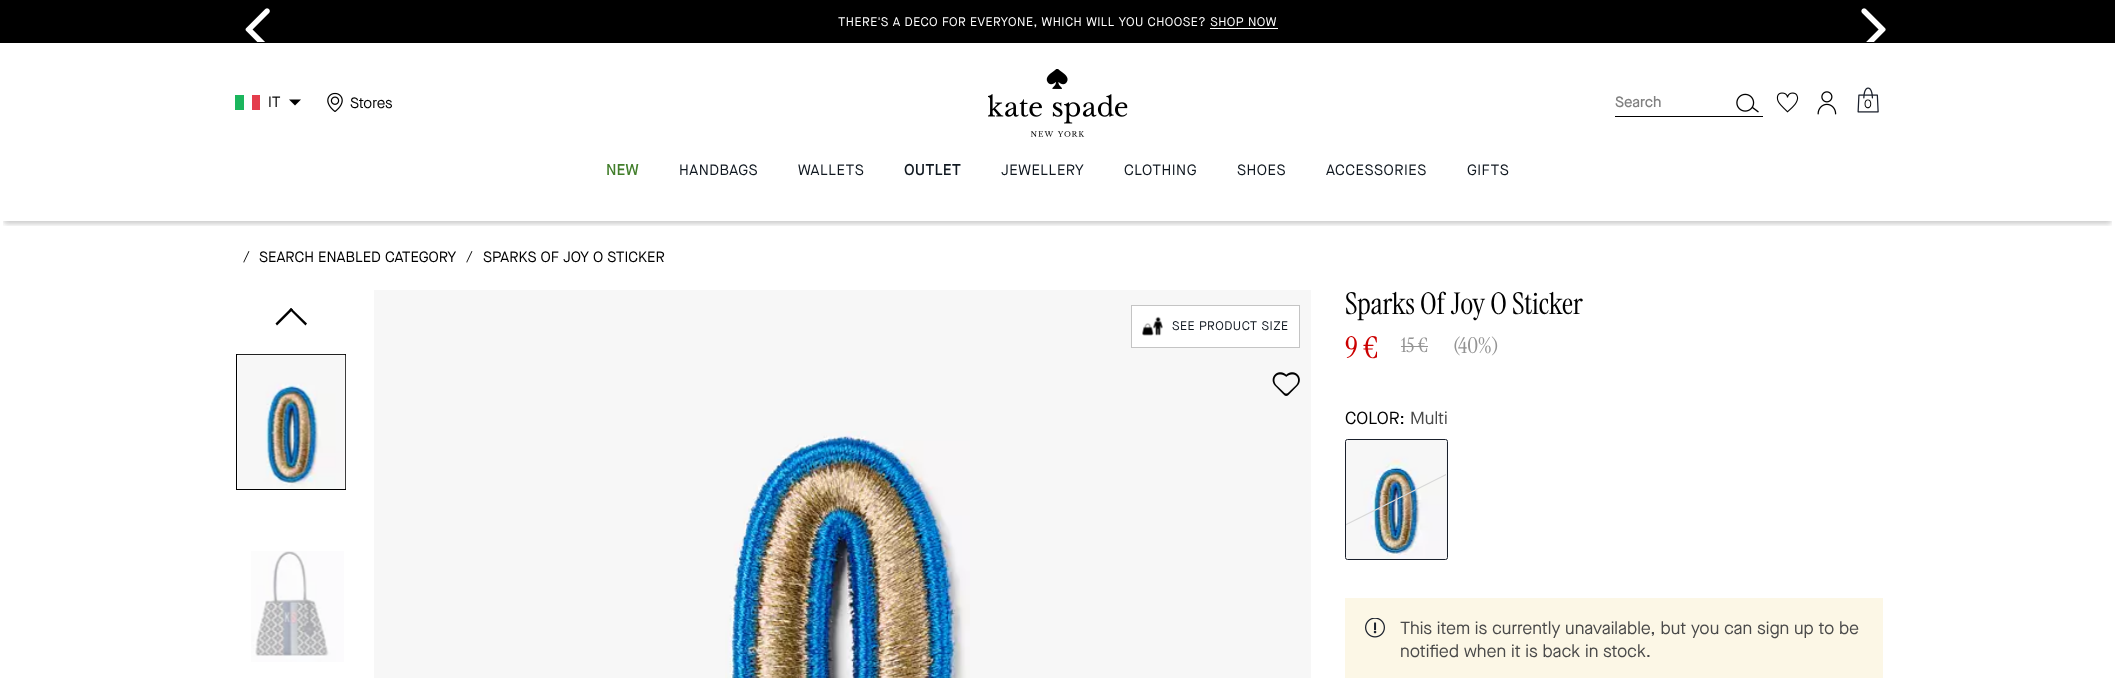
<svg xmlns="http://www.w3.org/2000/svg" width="2115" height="678">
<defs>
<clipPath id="clip1"><rect x="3" y="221" width="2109" height="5"/></clipPath>
<clipPath id="clip2"><rect x="1346" y="440" width="100" height="119"/></clipPath>
</defs>
<rect width="100%" height="100%" fill="#fff"/>
<rect width="2115" height="43" fill="#000"/>
<image x="245" y="8" width="25" height="34" href="media/1.png"/>
<image x="1861" y="8" width="25" height="34" href="media/2.png"/>
<text x="838" y="26" style="font-family:Maison Neue;font-size:12.5px;letter-spacing:0.5px;fill:#fff">THERE'S A DECO FOR EVERYONE, WHICH WILL YOU CHOOSE? SHOP NOW</text>
<rect x="1210" y="28" width="68" height="1" fill="#fff"/>
<g clip-path="url(#clip1)">
<rect x="4" y="53" width="2107" height="171" fill="#0000001a" filter="blur(2.5px)"/>
</g>
<image x="235" y="95" width="25" height="15" href="media/3.png"/>
<text x="268" y="107" style="font-family:Maison Neue;font-size:15px;fill:#000">IT</text>
<path d="M295 105.5l6-6h-12z" fill="#000" fill-rule="evenodd"/>
<image x="327" y="92" width="16" height="20" href="media/4.png"/>
<text x="350" y="108" style="font-family:Maison Neue;font-size:15px;fill:#000">Stores</text>
<image x="988" y="69" width="140" height="68" href="media/5.png"/>
<rect x="1615" y="116" width="148" height="1" fill="#000"/>
<text x="1615" y="107" style="font-family:Maison Neue;font-size:15px;font-weight:500;fill:#808080">Search</text>
<image x="1736" y="93" width="23" height="20" href="media/6.png"/>
<image x="1776" y="92" width="23" height="21" href="media/7.png"/>
<image x="1817" y="91" width="20" height="24" href="media/8.png"/>
<image x="1857" y="87" width="22" height="26" href="media/9.png"/>
<text x="1864" y="108" style="font-family:Maison Neue;font-size:12.5px;letter-spacing:1px;fill:#000">0</text>
<g clip-path="url(#clip1)">
<rect x="4" y="173" width="2107" height="51" fill="#0000001a" filter="blur(2.5px)"/>
</g>
<text x="606" y="175" style="font-family:Maison Neue;font-size:15px;font-weight:bold;letter-spacing:0.5px;fill:#427e2b">NEW</text>
<text x="679" y="175" style="font-family:Maison Neue;font-size:15px;letter-spacing:0.5px;fill:#101820">HANDBAGS</text>
<text x="798" y="175" style="font-family:Maison Neue;font-size:15px;letter-spacing:0.5px;fill:#101820">WALLETS</text>
<text x="904" y="175" style="font-family:Maison Neue;font-size:15px;font-weight:bold;letter-spacing:0.5px;fill:#101820">OUTLET</text>
<text x="1001" y="175" style="font-family:Maison Neue;font-size:15px;letter-spacing:0.5px;fill:#101820">JEWELLERY</text>
<text x="1124" y="175" style="font-family:Maison Neue;font-size:15px;letter-spacing:0.5px;fill:#101820">CLOTHING</text>
<text x="1237" y="175" style="font-family:Maison Neue;font-size:15px;letter-spacing:0.5px;fill:#101820">SHOES</text>
<text x="1326" y="175" style="font-family:Maison Neue;font-size:15px;letter-spacing:0.5px;fill:#101820">ACCESSORIES</text>
<text x="1467" y="175" style="font-family:Maison Neue;font-size:15px;letter-spacing:0.5px;fill:#101820">GIFTS</text>
<text x="243" y="262" style="font-family:Maison Neue;font-size:15px;fill:#000">/</text>
<text x="259" y="262" style="font-family:Maison Neue;font-size:15px;fill:#000">SEARCH ENABLED CATEGORY</text>
<text x="466" y="262" style="font-family:Maison Neue;font-size:15px;fill:#000">/</text>
<text x="483" y="262" style="font-family:Maison Neue;font-size:15px;fill:#000">SPARKS OF JOY O STICKER</text>
<path d="M275.5 323.5l15.5-15.5l2 1.5l-16 16z" fill="#000"/>
<path d="M289.5 309.5l1.5-1.5l16 15.5l-1.5 2z" fill="#000"/>
<rect x="236.5" y="354.5" width="109" height="135" fill="none" stroke="#000"/>
<image x="237" y="354" width="109" height="135" href="media/10.png"/>
<image x="251" y="551" width="93" height="111" href="media/11.png"/>
<rect x="374" y="290" width="937" height="388" fill="#f7f7f7"/>
<image x="725" y="431" width="245" height="247" href="media/12.png"/>
<rect x="1131.5" y="305.5" width="168" height="42" fill="#fff" stroke="#c4c4c4"/>
<image x="1142" y="316" width="21" height="20" href="media/13.png"/>
<text x="1172" y="330" style="font-family:Maison Neue;font-size:12.5px;letter-spacing:0.5px;fill:#101820">SEE PRODUCT SIZE</text>
<image x="1272" y="372" width="28" height="24" href="media/14.png"/>
<text x="1345" y="314" style="font-family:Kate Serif;font-size:30px;fill:#000">Sparks Of Joy O Sticker</text>
<text x="1345" y="358" style="font-family:Kate Serif;font-size:30px;fill:#c00">9 €</text>
<text x="1401" y="352" style="font-family:Kate Serif;font-size:20px;fill:#949494">15 €</text>
<rect x="1401" y="346" width="27" height="1" fill="#949494"/>
<text x="1453" y="353" style="font-family:Kate Serif;font-size:22px;fill:#949494">(</text>
<text x="1458" y="353" style="font-family:Kate Serif;font-size:22px;fill:#949494">40%</text>
<text x="1491" y="353" style="font-family:Kate Serif;font-size:22px;fill:#949494">)</text>
<text x="1345" y="424" style="font-family:Maison Neue;font-size:17.5px;fill:#000">COLOR:</text>
<text x="1410" y="424" style="font-family:Maison Neue;font-size:17.5px;fill:#4a4a4a">Multi</text>
<rect x="1345.5" y="439.5" width="102" height="120" rx="2" fill="#f0f0f0" stroke="#1a202c"/>
<image x="1346" y="440" width="101" height="119" href="media/15.png"/>
<g clip-path="url(#clip2)">
<path d="M1277.5 559l237.5-119" fill="none" stroke="#d8d8d8" stroke-width="1.2"/>
</g>
<rect x="1345" y="598" width="538" height="80" fill="#fcf7e6"/>
<image x="1365" y="618" width="20" height="20" href="media/16.png"/>
<text x="1400" y="634" style="font-family:Maison Neue;font-size:17.5px;fill:#4a4a4a">This item is currently unavailable, but you can sign up to be</text>
<text x="1400" y="657" style="font-family:Maison Neue;font-size:17.5px;fill:#4a4a4a">notified when it is back in stock.</text>
</svg>
